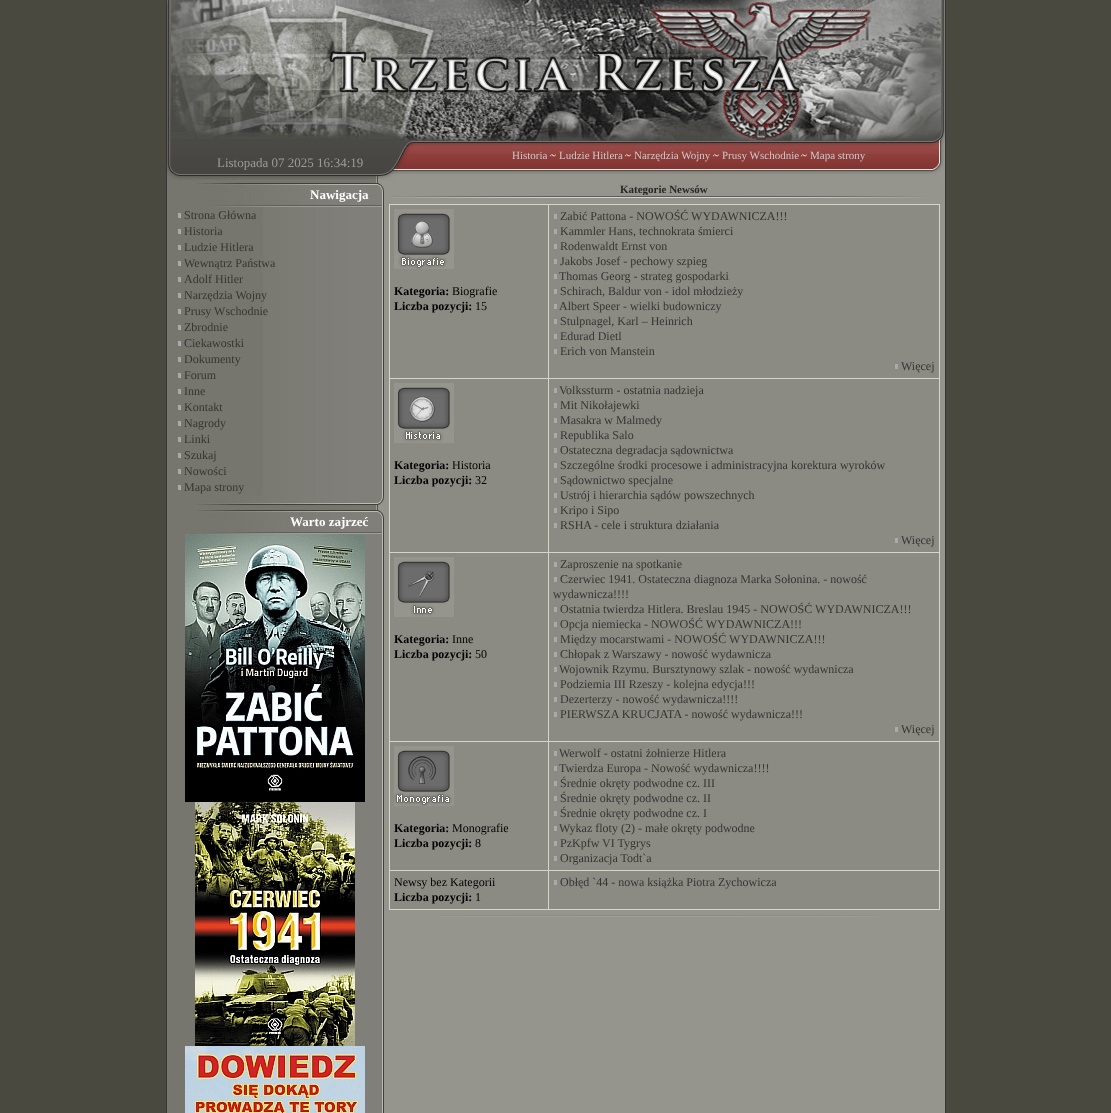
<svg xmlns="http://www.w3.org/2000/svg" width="1111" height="1113">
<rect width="100%" height="100%" fill="#49493f"/>
<image x="167" y="143" width="778" height="970" href="media/1.png"/>
<rect x="166" width="1" height="1113" fill="#353535"/>
<image x="167" y="0" width="778" height="143" href="media/2.png"/>
<image x="167" y="143" width="777" height="37" href="media/3.png"/>
<text x="512" y="159" style="font-family:Liberation Serif;font-size:11px;fill:#cbc9ca">Historia</text>
<text x="550" y="159" style="font-family:Liberation Serif;font-size:11px;fill:#fff">~</text>
<text x="559" y="159" style="font-family:Liberation Serif;font-size:11px;fill:#cbc9ca">Ludzie Hitlera</text>
<text x="625" y="159" style="font-family:Liberation Serif;font-size:11px;fill:#fff">~</text>
<text x="634" y="159" style="font-family:Liberation Serif;font-size:11px;fill:#cbc9ca">Narzędzia Wojny</text>
<text x="713" y="159" style="font-family:Liberation Serif;font-size:11px;fill:#fff">~</text>
<text x="722" y="159" style="font-family:Liberation Serif;font-size:11px;fill:#cbc9ca">Prusy Wschodnie</text>
<text x="801" y="159" style="font-family:Liberation Serif;font-size:11px;fill:#fff">~</text>
<text x="810" y="159" style="font-family:Liberation Serif;font-size:11px;fill:#cbc9ca">Mapa strony</text>
<text x="217" y="167" style="font-family:Liberation Serif;font-size:13px;fill:#9b9b99">Listopada 07 2025 16:34:19</text>
<image x="197" y="183" width="187" height="24" href="media/4.png"/>
<text x="310" y="199" style="font-family:Liberation Serif;font-size:13px;font-weight:bold;fill:#fff">Nawigacja</text>
<image x="262" y="207" width="122" height="288" href="media/5.png"/>
<rect x="178" y="213" width="3" height="5" fill="#aaa"/>
<text x="184" y="219" style="font-family:Liberation Serif;font-size:12px;fill:#353535">Strona Główna</text>
<rect x="178" y="229" width="3" height="5" fill="#aaa"/>
<text x="184" y="235" style="font-family:Liberation Serif;font-size:12px;fill:#353535">Historia</text>
<rect x="178" y="245" width="3" height="5" fill="#aaa"/>
<text x="184" y="251" style="font-family:Liberation Serif;font-size:12px;fill:#353535">Ludzie Hitlera</text>
<rect x="178" y="261" width="3" height="5" fill="#aaa"/>
<text x="184" y="267" style="font-family:Liberation Serif;font-size:12px;fill:#353535">Wewnątrz Państwa</text>
<rect x="178" y="277" width="3" height="5" fill="#aaa"/>
<text x="184" y="283" style="font-family:Liberation Serif;font-size:12px;fill:#353535">Adolf Hitler</text>
<rect x="178" y="293" width="3" height="5" fill="#aaa"/>
<text x="184" y="299" style="font-family:Liberation Serif;font-size:12px;fill:#353535">Narzędzia Wojny</text>
<rect x="178" y="309" width="3" height="5" fill="#aaa"/>
<text x="184" y="315" style="font-family:Liberation Serif;font-size:12px;fill:#353535">Prusy Wschodnie</text>
<rect x="178" y="325" width="3" height="5" fill="#aaa"/>
<text x="184" y="331" style="font-family:Liberation Serif;font-size:12px;fill:#353535">Zbrodnie</text>
<rect x="178" y="341" width="3" height="5" fill="#aaa"/>
<text x="184" y="347" style="font-family:Liberation Serif;font-size:12px;fill:#353535">Ciekawostki</text>
<rect x="178" y="357" width="3" height="5" fill="#aaa"/>
<text x="184" y="363" style="font-family:Liberation Serif;font-size:12px;fill:#353535">Dokumenty</text>
<rect x="178" y="373" width="3" height="5" fill="#aaa"/>
<text x="184" y="379" style="font-family:Liberation Serif;font-size:12px;fill:#353535">Forum</text>
<rect x="178" y="389" width="3" height="5" fill="#aaa"/>
<text x="184" y="395" style="font-family:Liberation Serif;font-size:12px;fill:#353535">Inne</text>
<rect x="178" y="405" width="3" height="5" fill="#aaa"/>
<text x="184" y="411" style="font-family:Liberation Serif;font-size:12px;fill:#353535">Kontakt</text>
<rect x="178" y="421" width="3" height="5" fill="#aaa"/>
<text x="184" y="427" style="font-family:Liberation Serif;font-size:12px;fill:#353535">Nagrody</text>
<rect x="178" y="437" width="3" height="5" fill="#aaa"/>
<text x="184" y="443" style="font-family:Liberation Serif;font-size:12px;fill:#353535">Linki</text>
<rect x="178" y="453" width="3" height="5" fill="#aaa"/>
<text x="184" y="459" style="font-family:Liberation Serif;font-size:12px;fill:#353535">Szukaj</text>
<rect x="178" y="469" width="3" height="5" fill="#aaa"/>
<text x="184" y="475" style="font-family:Liberation Serif;font-size:12px;fill:#353535">Nowości</text>
<rect x="178" y="485" width="3" height="5" fill="#aaa"/>
<text x="184" y="491" style="font-family:Liberation Serif;font-size:12px;fill:#353535">Mapa strony</text>
<image x="197" y="495" width="187" height="10" href="media/6.png"/>
<image x="197" y="510" width="187" height="24" href="media/4.png"/>
<text x="290" y="526" style="font-family:Liberation Serif;font-size:13px;font-weight:bold;fill:#fff">Warto zajrzeć</text>
<image x="355" y="534" width="29" height="579" href="media/7.png"/>
<image x="185" y="534" width="180" height="268" href="media/8.png"/>
<image x="195" y="802" width="160" height="244" href="media/9.png"/>
<image x="185" y="1046" width="180" height="67" href="media/10.png"/>
<text x="620" y="193" style="font-family:Liberation Serif;font-size:11px;font-weight:bold;fill:#272727">Kategorie Newsów</text>
<image x="392" y="195" width="533" height="3" href="media/11.png"/>
<rect x="389" y="204" width="551" height="706" fill="#d5d5c8"/>
<rect x="390" y="205" width="158" height="173" fill="#8b8b83"/>
<image x="394" y="209" width="60" height="60" href="media/12.png"/>
<text x="394" y="295" style="font-family:Liberation Serif;font-size:12px;font-weight:bold;fill:#000">Kategoria:</text>
<text x="452" y="295" style="font-family:Liberation Serif;font-size:12px;fill:#000">Biografie</text>
<text x="394" y="310" style="font-family:Liberation Serif;font-size:12px;font-weight:bold;fill:#000">Liczba pozycji:</text>
<text x="475" y="310" style="font-family:Liberation Serif;font-size:12px;fill:#000">15</text>
<rect x="549" y="205" width="390" height="173" fill="#8b8b83"/>
<rect x="554" y="214" width="3" height="5" fill="#aaa"/>
<text x="560" y="220" style="font-family:Liberation Serif;font-size:12px;fill:#353535">Zabić Pattona - NOWOŚĆ WYDAWNICZA!!!</text>
<rect x="554" y="229" width="3" height="5" fill="#aaa"/>
<text x="560" y="235" style="font-family:Liberation Serif;font-size:12px;fill:#353535">Kammler Hans, technokrata śmierci</text>
<rect x="554" y="244" width="3" height="5" fill="#aaa"/>
<text x="560" y="250" style="font-family:Liberation Serif;font-size:12px;fill:#353535">Rodenwaldt Ernst von</text>
<rect x="554" y="259" width="3" height="5" fill="#aaa"/>
<text x="560" y="265" style="font-family:Liberation Serif;font-size:12px;fill:#353535">Jakobs Josef - pechowy szpieg</text>
<rect x="554" y="274" width="3" height="5" fill="#aaa"/>
<text x="559" y="280" style="font-family:Liberation Serif;font-size:12px;fill:#353535">Thomas Georg - strateg gospodarki</text>
<rect x="554" y="289" width="3" height="5" fill="#aaa"/>
<text x="560" y="295" style="font-family:Liberation Serif;font-size:12px;fill:#353535">Schirach, Baldur von - idol młodzieży</text>
<rect x="554" y="304" width="3" height="5" fill="#aaa"/>
<text x="559" y="310" style="font-family:Liberation Serif;font-size:12px;fill:#353535">Albert Speer - wielki budowniczy</text>
<rect x="554" y="319" width="3" height="5" fill="#aaa"/>
<text x="560" y="325" style="font-family:Liberation Serif;font-size:12px;fill:#353535">Stulpnagel, Karl – Heinrich</text>
<rect x="554" y="334" width="3" height="5" fill="#aaa"/>
<text x="560" y="340" style="font-family:Liberation Serif;font-size:12px;fill:#353535">Edurad Dietl</text>
<rect x="554" y="349" width="3" height="5" fill="#aaa"/>
<text x="560" y="355" style="font-family:Liberation Serif;font-size:12px;fill:#353535">Erich von Manstein</text>
<rect x="895" y="364" width="3" height="5" fill="#aaa"/>
<text x="901" y="370" style="font-family:Liberation Serif;font-size:12px;fill:#353535">Więcej</text>
<rect x="390" y="379" width="158" height="173" fill="#8b8b83"/>
<image x="394" y="383" width="60" height="60" href="media/13.png"/>
<text x="394" y="469" style="font-family:Liberation Serif;font-size:12px;font-weight:bold;fill:#000">Kategoria:</text>
<text x="452" y="469" style="font-family:Liberation Serif;font-size:12px;fill:#000">Historia</text>
<text x="394" y="484" style="font-family:Liberation Serif;font-size:12px;font-weight:bold;fill:#000">Liczba pozycji:</text>
<text x="475" y="484" style="font-family:Liberation Serif;font-size:12px;fill:#000">32</text>
<rect x="549" y="379" width="390" height="173" fill="#8b8b83"/>
<rect x="554" y="388" width="3" height="5" fill="#aaa"/>
<text x="559" y="394" style="font-family:Liberation Serif;font-size:12px;fill:#353535">Volkssturm - ostatnia nadzieja</text>
<rect x="554" y="403" width="3" height="5" fill="#aaa"/>
<text x="560" y="409" style="font-family:Liberation Serif;font-size:12px;fill:#353535">Mit Nikołajewki</text>
<rect x="554" y="418" width="3" height="5" fill="#aaa"/>
<text x="560" y="424" style="font-family:Liberation Serif;font-size:12px;fill:#353535">Masakra w Malmedy</text>
<rect x="554" y="433" width="3" height="5" fill="#aaa"/>
<text x="560" y="439" style="font-family:Liberation Serif;font-size:12px;fill:#353535">Republika Salo</text>
<rect x="554" y="448" width="3" height="5" fill="#aaa"/>
<text x="560" y="454" style="font-family:Liberation Serif;font-size:12px;fill:#353535">Ostateczna degradacja sądownictwa</text>
<rect x="554" y="463" width="3" height="5" fill="#aaa"/>
<text x="560" y="469" style="font-family:Liberation Serif;font-size:12px;fill:#353535">Szczególne środki procesowe i administracyjna korektura wyroków</text>
<rect x="554" y="478" width="3" height="5" fill="#aaa"/>
<text x="560" y="484" style="font-family:Liberation Serif;font-size:12px;fill:#353535">Sądownictwo specjalne</text>
<rect x="554" y="493" width="3" height="5" fill="#aaa"/>
<text x="560" y="499" style="font-family:Liberation Serif;font-size:12px;fill:#353535">Ustrój i hierarchia sądów powszechnych</text>
<rect x="554" y="508" width="3" height="5" fill="#aaa"/>
<text x="560" y="514" style="font-family:Liberation Serif;font-size:12px;fill:#353535">Kripo i Sipo</text>
<rect x="554" y="523" width="3" height="5" fill="#aaa"/>
<text x="560" y="529" style="font-family:Liberation Serif;font-size:12px;fill:#353535">RSHA - cele i struktura działania</text>
<rect x="895" y="538" width="3" height="5" fill="#aaa"/>
<text x="901" y="544" style="font-family:Liberation Serif;font-size:12px;fill:#353535">Więcej</text>
<rect x="390" y="553" width="158" height="188" fill="#8b8b83"/>
<image x="394" y="557" width="60" height="60" href="media/14.png"/>
<text x="394" y="643" style="font-family:Liberation Serif;font-size:12px;font-weight:bold;fill:#000">Kategoria:</text>
<text x="452" y="643" style="font-family:Liberation Serif;font-size:12px;fill:#000">Inne</text>
<text x="394" y="658" style="font-family:Liberation Serif;font-size:12px;font-weight:bold;fill:#000">Liczba pozycji:</text>
<text x="475" y="658" style="font-family:Liberation Serif;font-size:12px;fill:#000">50</text>
<rect x="549" y="553" width="390" height="188" fill="#8b8b83"/>
<rect x="554" y="562" width="3" height="5" fill="#aaa"/>
<text x="560" y="568" style="font-family:Liberation Serif;font-size:12px;fill:#353535">Zaproszenie na spotkanie</text>
<rect x="554" y="577" width="3" height="5" fill="#aaa"/>
<text x="560" y="583" style="font-family:Liberation Serif;font-size:12px;fill:#353535">Czerwiec 1941. Ostateczna diagnoza Marka Sołonina. - nowość</text>
<text x="553" y="598" style="font-family:Liberation Serif;font-size:12px;fill:#353535">wydawnicza!!!!</text>
<rect x="554" y="607" width="3" height="5" fill="#aaa"/>
<text x="560" y="613" style="font-family:Liberation Serif;font-size:12px;fill:#353535">Ostatnia twierdza Hitlera. Breslau 1945 - NOWOŚĆ WYDAWNICZA!!!</text>
<rect x="554" y="622" width="3" height="5" fill="#aaa"/>
<text x="560" y="628" style="font-family:Liberation Serif;font-size:12px;fill:#353535">Opcja niemiecka - NOWOŚĆ WYDAWNICZA!!!</text>
<rect x="554" y="637" width="3" height="5" fill="#aaa"/>
<text x="560" y="643" style="font-family:Liberation Serif;font-size:12px;fill:#353535">Między mocarstwami - NOWOŚĆ WYDAWNICZA!!!</text>
<rect x="554" y="652" width="3" height="5" fill="#aaa"/>
<text x="560" y="658" style="font-family:Liberation Serif;font-size:12px;fill:#353535">Chłopak z Warszawy - nowość wydawnicza</text>
<rect x="554" y="667" width="3" height="5" fill="#aaa"/>
<text x="559" y="673" style="font-family:Liberation Serif;font-size:12px;fill:#353535">Wojownik Rzymu. Bursztynowy szlak - nowość wydawnicza</text>
<rect x="554" y="682" width="3" height="5" fill="#aaa"/>
<text x="560" y="688" style="font-family:Liberation Serif;font-size:12px;fill:#353535">Podziemia III Rzeszy - kolejna edycja!!!</text>
<rect x="554" y="697" width="3" height="5" fill="#aaa"/>
<text x="560" y="703" style="font-family:Liberation Serif;font-size:12px;fill:#353535">Dezerterzy - nowość wydawnicza!!!!</text>
<rect x="554" y="712" width="3" height="5" fill="#aaa"/>
<text x="560" y="718" style="font-family:Liberation Serif;font-size:12px;fill:#353535">PIERWSZA KRUCJATA - nowość wydawnicza!!!</text>
<rect x="895" y="727" width="3" height="5" fill="#aaa"/>
<text x="901" y="733" style="font-family:Liberation Serif;font-size:12px;fill:#353535">Więcej</text>
<rect x="390" y="742" width="158" height="128" fill="#8b8b83"/>
<image x="394" y="746" width="60" height="60" href="media/15.png"/>
<text x="394" y="832" style="font-family:Liberation Serif;font-size:12px;font-weight:bold;fill:#000">Kategoria:</text>
<text x="452" y="832" style="font-family:Liberation Serif;font-size:12px;fill:#000">Monografie</text>
<text x="394" y="847" style="font-family:Liberation Serif;font-size:12px;font-weight:bold;fill:#000">Liczba pozycji:</text>
<text x="475" y="847" style="font-family:Liberation Serif;font-size:12px;fill:#000">8</text>
<rect x="549" y="742" width="390" height="128" fill="#8b8b83"/>
<rect x="554" y="751" width="3" height="5" fill="#aaa"/>
<text x="559" y="757" style="font-family:Liberation Serif;font-size:12px;fill:#353535">Werwolf - ostatni żołnierze Hitlera</text>
<rect x="554" y="766" width="3" height="5" fill="#aaa"/>
<text x="559" y="772" style="font-family:Liberation Serif;font-size:12px;fill:#353535">Twierdza Europa - Nowość wydawnicza!!!!</text>
<rect x="554" y="781" width="3" height="5" fill="#aaa"/>
<text x="560" y="787" style="font-family:Liberation Serif;font-size:12px;fill:#353535">Średnie okręty podwodne cz. III</text>
<rect x="554" y="796" width="3" height="5" fill="#aaa"/>
<text x="560" y="802" style="font-family:Liberation Serif;font-size:12px;fill:#353535">Średnie okręty podwodne cz. II</text>
<rect x="554" y="811" width="3" height="5" fill="#aaa"/>
<text x="560" y="817" style="font-family:Liberation Serif;font-size:12px;fill:#353535">Średnie okręty podwodne cz. I</text>
<rect x="554" y="826" width="3" height="5" fill="#aaa"/>
<text x="559" y="832" style="font-family:Liberation Serif;font-size:12px;fill:#353535">Wykaz floty (2) - małe okręty podwodne</text>
<rect x="554" y="841" width="3" height="5" fill="#aaa"/>
<text x="560" y="847" style="font-family:Liberation Serif;font-size:12px;fill:#353535">PzKpfw VI Tygrys</text>
<rect x="554" y="856" width="3" height="5" fill="#aaa"/>
<text x="560" y="862" style="font-family:Liberation Serif;font-size:12px;fill:#353535">Organizacja Todt`a</text>
<rect x="390" y="871" width="158" height="38" fill="#8b8b83"/>
<text x="394" y="886" style="font-family:Liberation Serif;font-size:12px;fill:#000">Newsy bez Kategorii</text>
<text x="394" y="901" style="font-family:Liberation Serif;font-size:12px;font-weight:bold;fill:#000">Liczba pozycji:</text>
<text x="475" y="901" style="font-family:Liberation Serif;font-size:12px;fill:#000">1</text>
<rect x="549" y="871" width="390" height="38" fill="#8b8b83"/>
<rect x="554" y="880" width="3" height="5" fill="#aaa"/>
<text x="560" y="886" style="font-family:Liberation Serif;font-size:12px;fill:#353535">Obłęd `44 - nowa książka Piotra Zychowicza</text>
<image x="439" y="915" width="439" height="2" href="media/16.png"/>
<rect x="945" width="1" height="1113" fill="#353535"/>
</svg>
